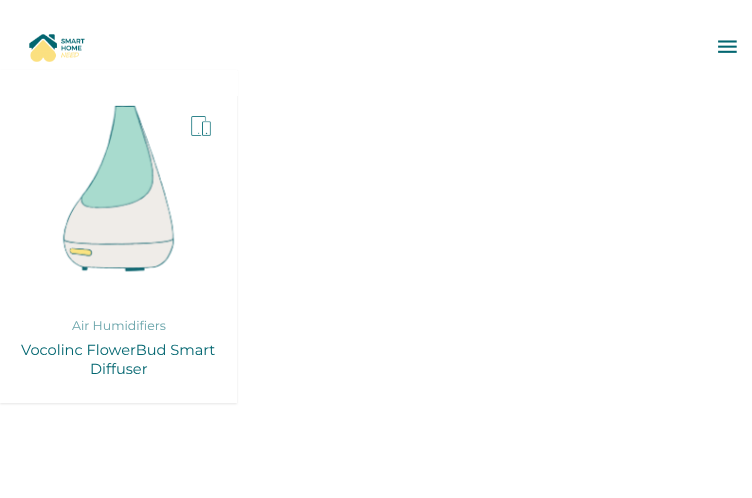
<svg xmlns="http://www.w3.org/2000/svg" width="752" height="498">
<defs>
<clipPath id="clip1"><path d="M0 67h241v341h-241zm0 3h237v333h-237z" clip-rule="evenodd"/></clipPath>
</defs>
<rect width="100%" height="100%" fill="#fff"/>
<g clip-path="url(#clip1)">
<rect y="71" width="237" height="333" fill="#0000001a" filter="blur(1px)"/>
</g>
<rect x="237" y="71" width="1" height="25" fill="#fff"/>
<image x="29" y="34" width="56" height="28" href="media/1.png"/>
<image x="718" y="40" width="19" height="13" href="media/2.png"/>
<image x="62" y="105" width="113" height="167" href="media/3.png"/>
<image x="191" y="116" width="20" height="20" href="media/4.png"/>
<text x="72" y="330" style="font-family:Montserrat;font-size:12.5px;fill:#67a3a9">Air Humidifiers</text>
<text x="21" y="355" style="font-family:Montserrat;font-size:14.6px;fill:#026670">Vocolinc FlowerBud Smart</text>
<text x="90" y="374" style="font-family:Montserrat;font-size:14.6px;fill:#026670">Diffuser</text>
</svg>
